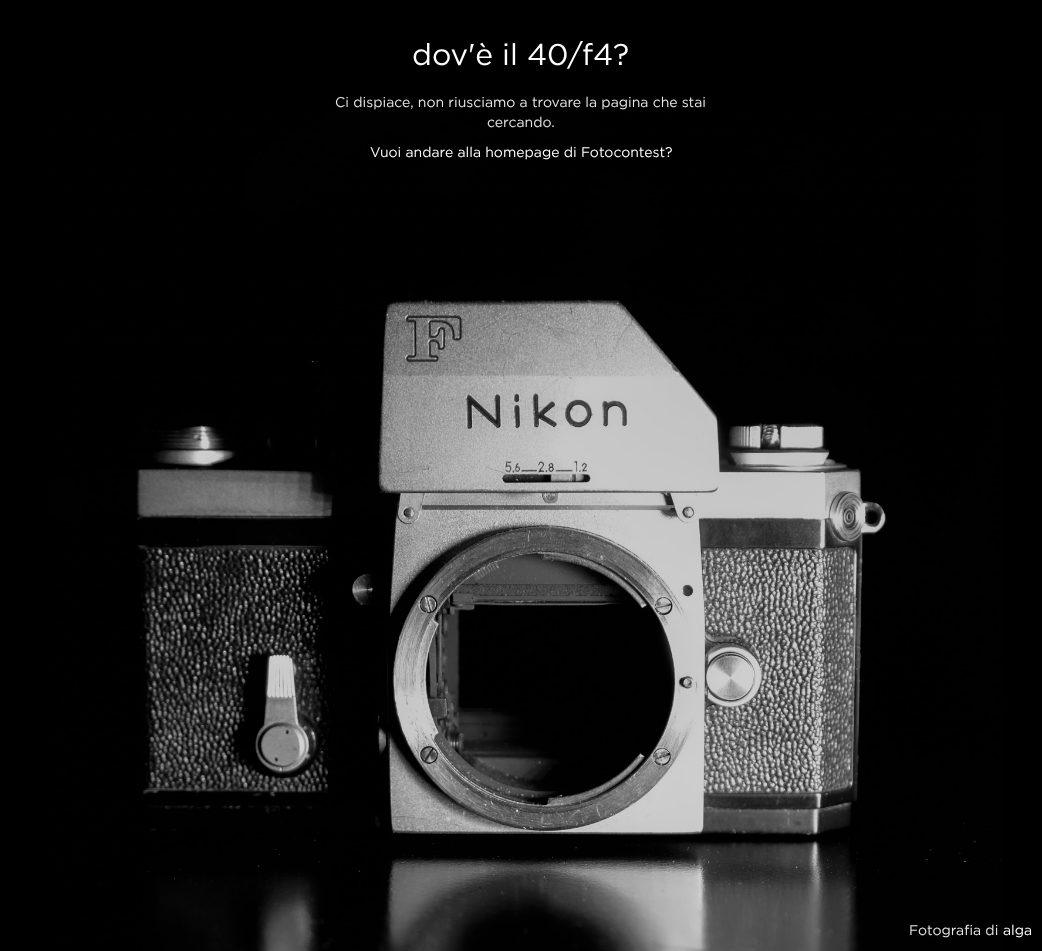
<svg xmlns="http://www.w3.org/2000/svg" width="1042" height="951">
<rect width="100%" height="100%" fill="#fff"/>
<image x="0" y="0" width="1042" height="951" href="media/1.png"/>
<text x="412" y="65" style="font-family:Gotham;font-size:30px;fill:#fff">dov'è il 40/f4?</text>
<text x="335" y="107" style="font-family:Gotham;font-size:14px;fill:#e6e6e6">Ci dispiace, non riusciamo a trovare la pagina che stai</text>
<text x="487" y="127" style="font-family:Gotham;font-size:14px;fill:#e6e6e6">cercando.</text>
<text x="370" y="157" style="font-family:Gotham;font-size:14px;fill:#fff">Vuoi andare alla homepage di Fotocontest?</text>
<text x="909" y="935" style="font-family:Gotham;font-size:14px;fill:#e6e6e6">Fotografia di</text>
<text x="1003" y="935" style="font-family:Gotham;font-size:14px;fill:#fff">alga</text>
</svg>
